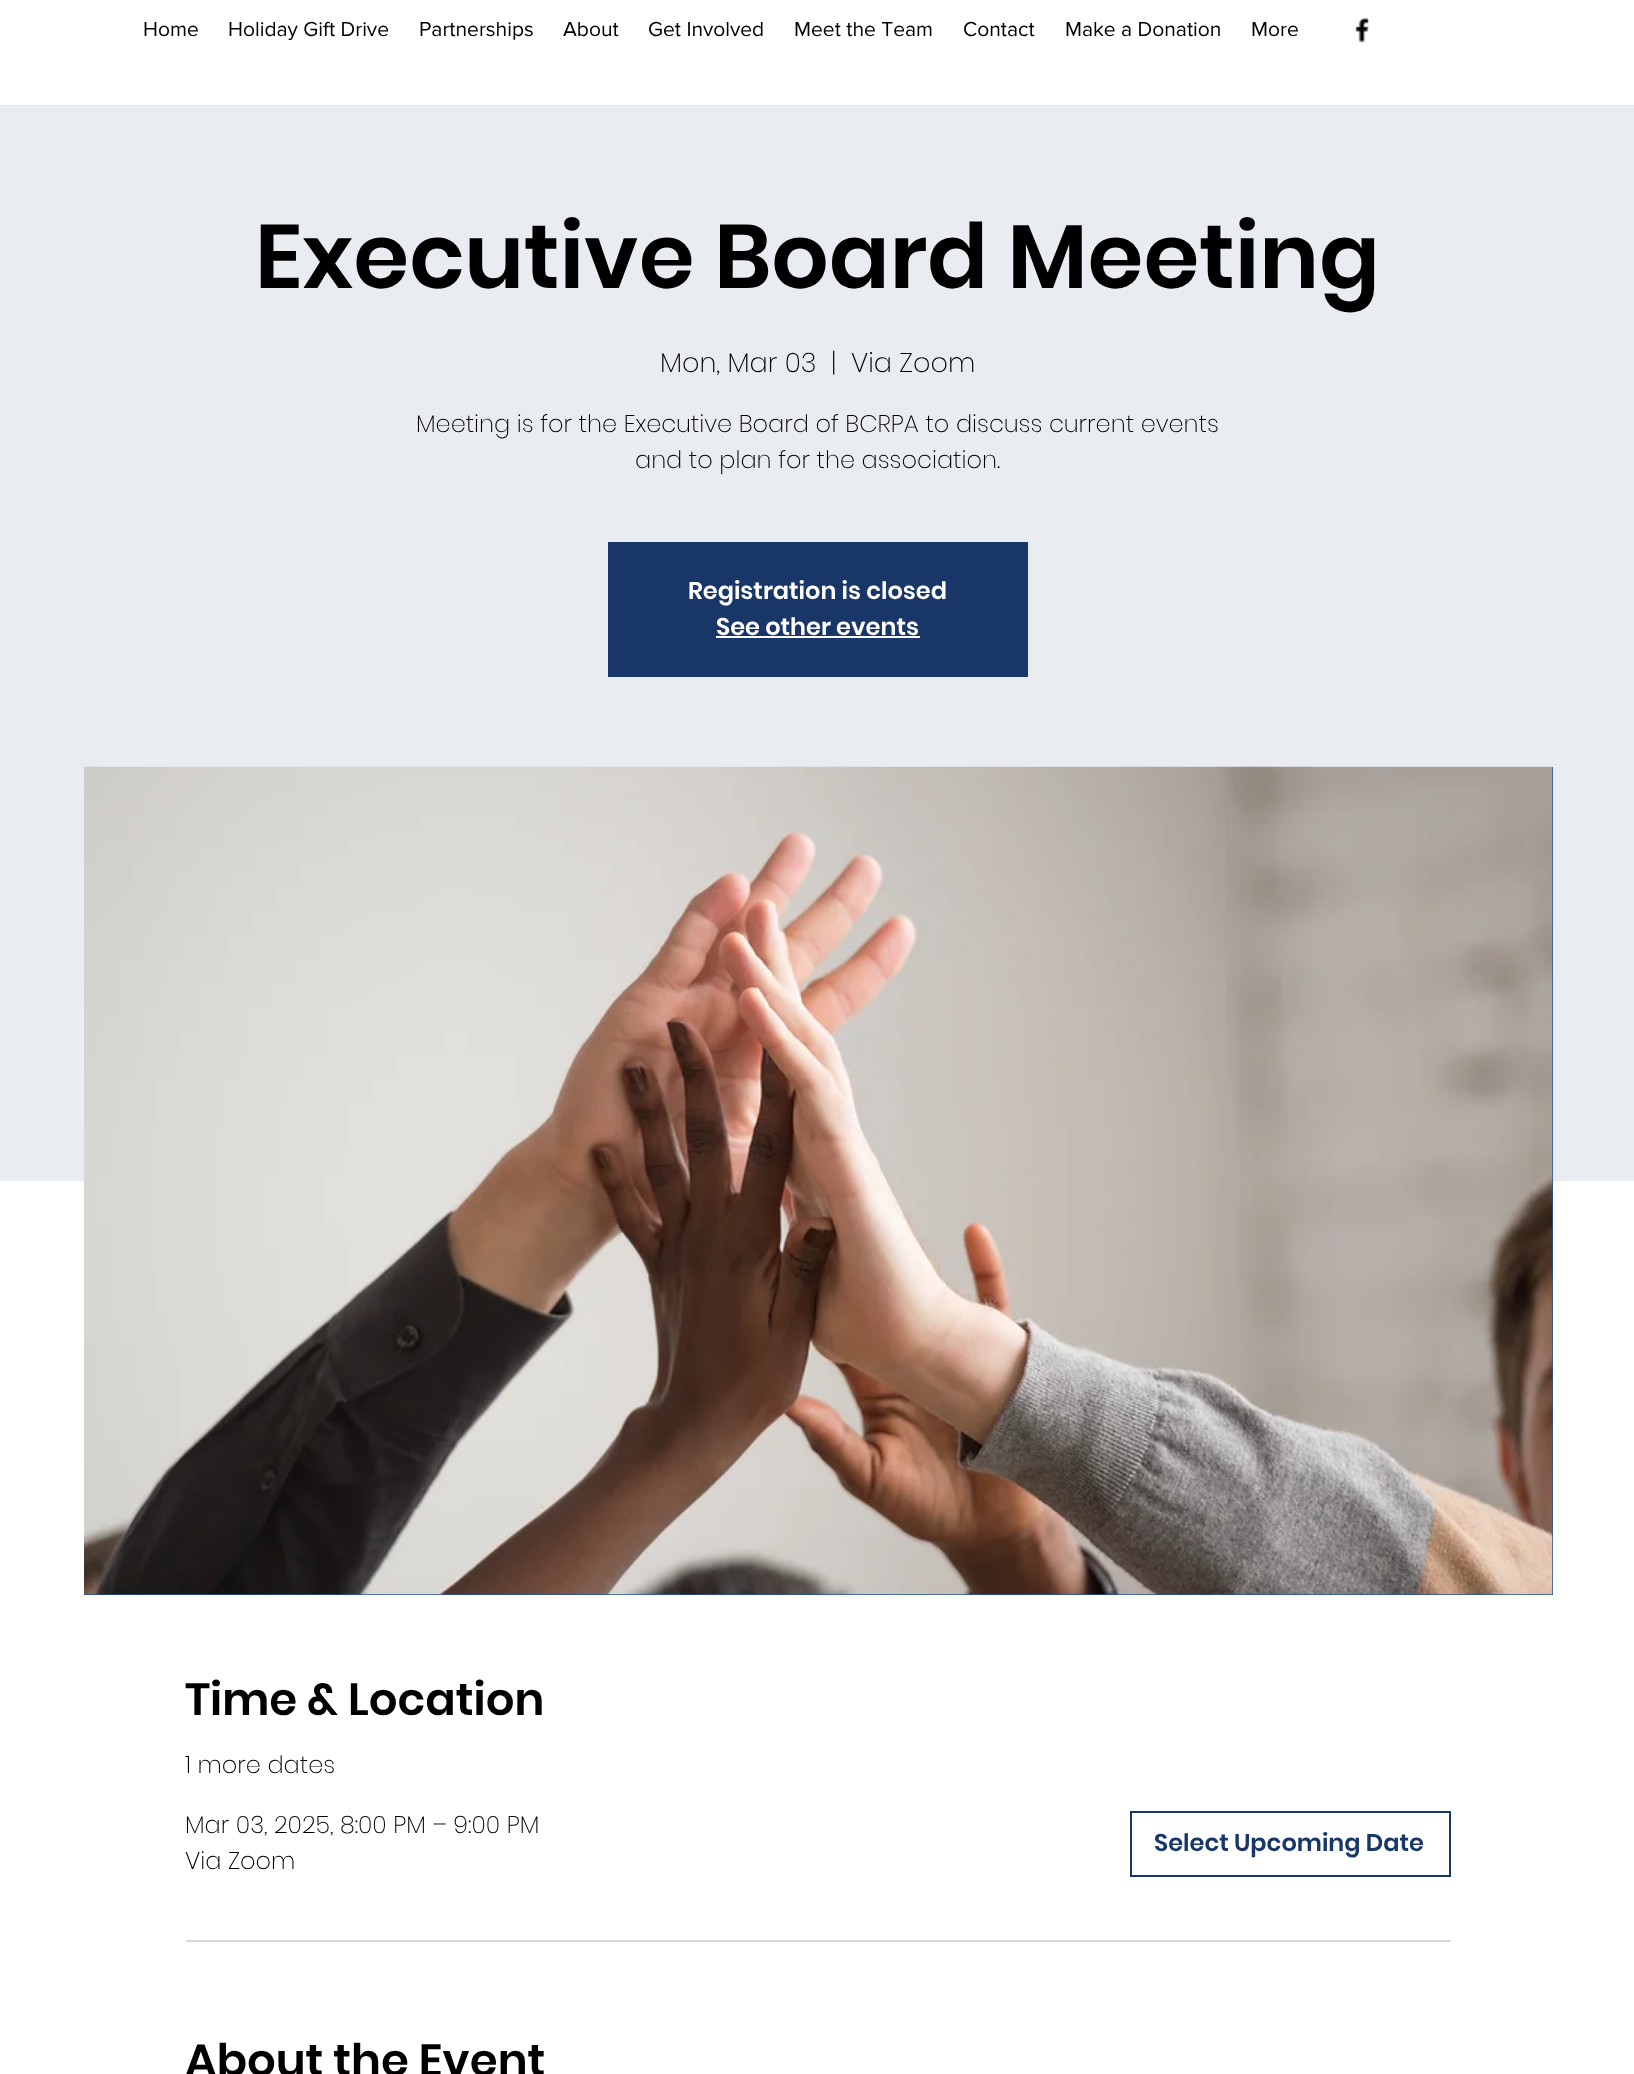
<svg xmlns="http://www.w3.org/2000/svg" width="1634" height="2074">
<rect width="100%" height="100%" fill="#fff"/>
<text x="143" y="36" style="font-family:'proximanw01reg';font-size:21px;fill:#000">Home</text>
<text x="228" y="36" style="font-family:'proximanw01reg';font-size:21px;fill:#000">Holiday Gift Drive</text>
<text x="419" y="36" style="font-family:'proximanw01reg';font-size:21px;fill:#000">Partnerships</text>
<text x="563" y="36" style="font-family:'proximanw01reg';font-size:21px;fill:#000">About</text>
<text x="648" y="36" style="font-family:'proximanw01reg';font-size:21px;fill:#000">Get Involved</text>
<text x="794" y="36" style="font-family:'proximanw01reg';font-size:21px;fill:#000">Meet the Team</text>
<text x="963" y="36" style="font-family:'proximanw01reg';font-size:21px;fill:#000">Contact</text>
<text x="1065" y="36" style="font-family:'proximanw01reg';font-size:21px;fill:#000">Make a Donation</text>
<text x="1251" y="36" style="font-family:'proximanw01reg';font-size:21px;fill:#000">More</text>
<image x="1355" y="17" width="14" height="26" href="media/1.png"/>
<rect y="105" width="1634" height="1076" fill="#e9ecf1"/>
<text x="255" y="288" style="font-family:Poppins;font-size:90px;font-weight:600;fill:#000">Executive Board Meeting</text>
<text x="660" y="372" style="font-family:Poppins;font-size:27px;font-weight:200;fill:#000">Mon, Mar 03</text>
<text x="831" y="372" style="font-family:Poppins;font-size:27px;font-weight:200;fill:#000">|</text>
<text x="851" y="372" style="font-family:Poppins;font-size:27px;font-weight:200;fill:#000">Via Zoom</text>
<text x="416" y="432" style="font-family:Poppins;font-size:24px;font-weight:200;fill:#000">Meeting is for the Executive Board of BCRPA to discuss current events</text>
<text x="635" y="468" style="font-family:Poppins;font-size:24px;font-weight:200;fill:#000">and to plan for the association.</text>
<rect x="608" y="542" width="420" height="135" fill="#193669"/>
<text x="688" y="599" style="font-family:Poppins;font-size:24px;font-weight:600;fill:#fff">Registration is closed</text>
<text x="716" y="635" style="font-family:Poppins;font-size:24px;font-weight:600;fill:#fff">See other events</text>
<rect x="716" y="636" width="204" height="2" fill="#fff"/>
<rect x="84" y="767" width="1469" height="828" fill="#2654a3"/>
<image x="84" y="766" width="1469" height="829" href="media/2.png"/>
<text x="185" y="1715" style="font-family:Poppins;font-size:45px;font-weight:600;fill:#000">Time &amp; Location</text>
<text x="185" y="1773" style="font-family:Poppins;font-size:24px;font-weight:200;fill:#000">1 more dates</text>
<text x="185" y="1833" style="font-family:Poppins;font-size:24px;font-weight:200;fill:#000">Mar 03, 2025, 8:00 PM – 9:00 PM</text>
<text x="185" y="1869" style="font-family:Poppins;font-size:24px;font-weight:200;fill:#000">Via Zoom</text>
<rect x="1131" y="1812" width="319" height="64" fill="none" stroke="#193669" stroke-width="2"/>
<text x="1154" y="1851" style="font-family:Poppins;font-size:24px;font-weight:600;fill:#193669">Select Upcoming Date</text>
<rect x="186" y="1940" width="1265" height="2" fill="#d9d9d9"/>
<text x="185" y="2076" style="font-family:Poppins;font-size:45px;font-weight:600;fill:#000">About the Event</text>
</svg>
